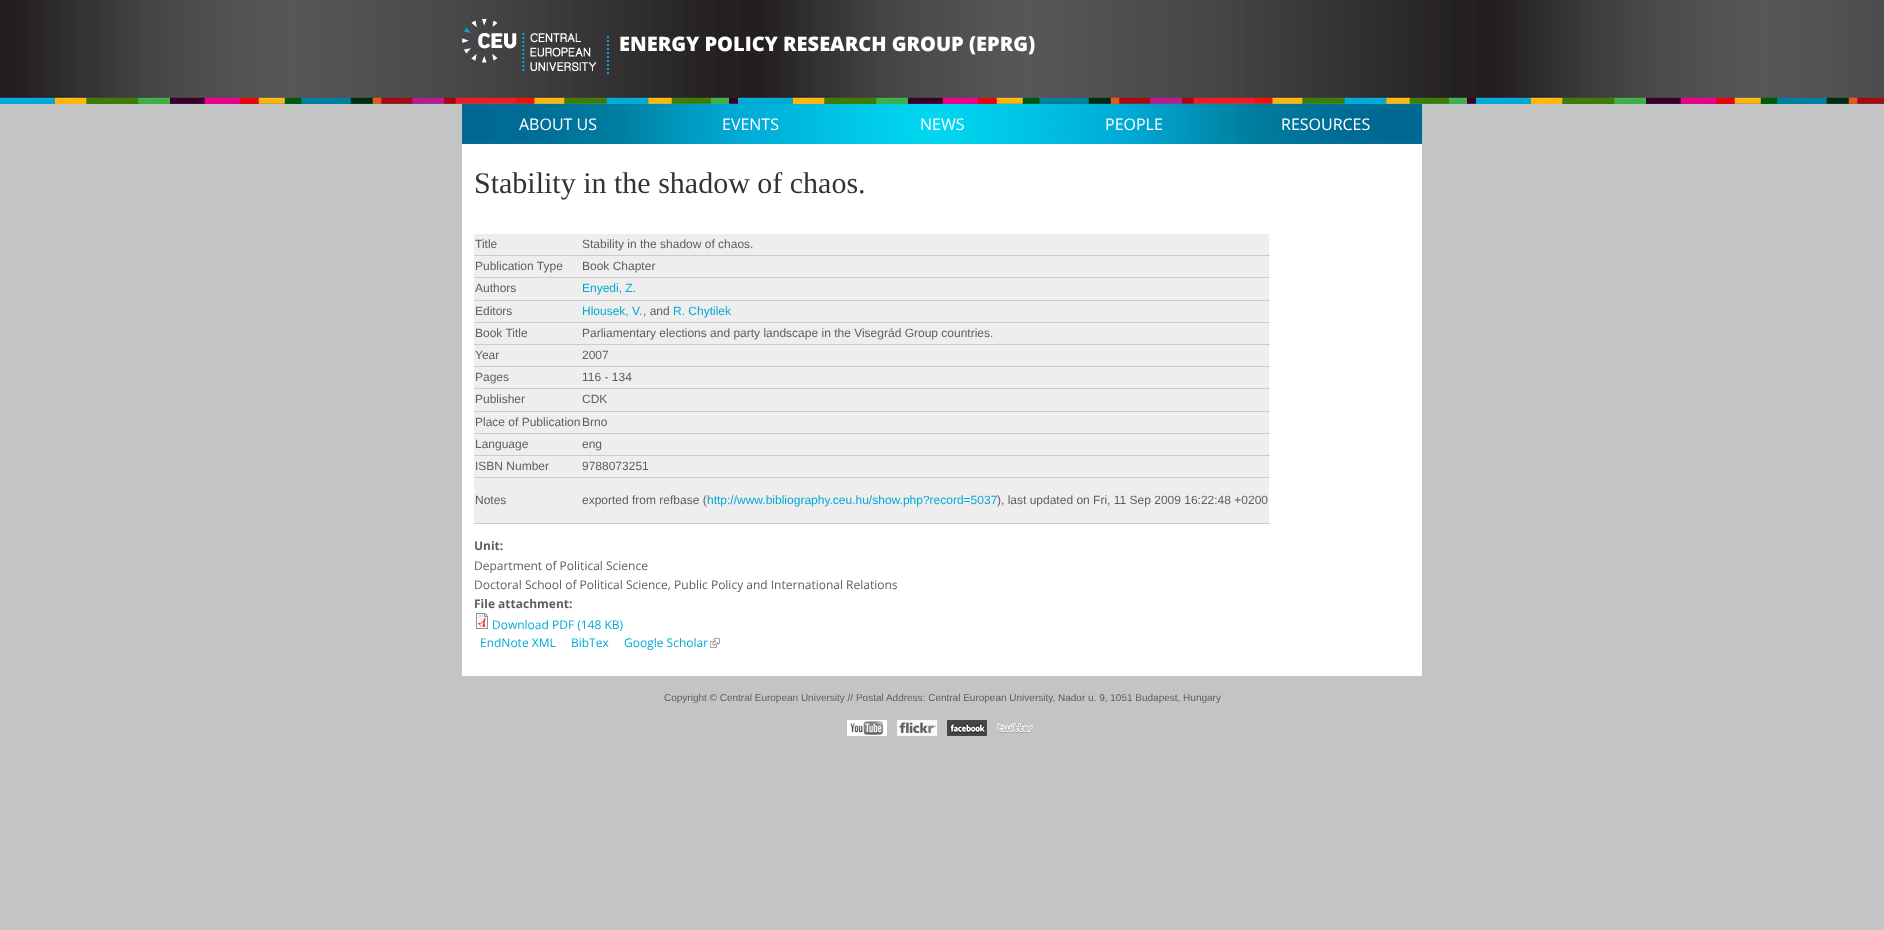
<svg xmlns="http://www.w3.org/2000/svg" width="1884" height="930">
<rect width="100%" height="100%" fill="#c3c4c4"/>
<image x="0" y="0" width="1884" height="104" href="media/1.png"/>
<image x="462" y="19" width="135" height="52" href="media/2.png"/>
<path d="M608 36v38" fill="none" stroke="#00a9d5" stroke-width="2" stroke-dasharray="2 2"/>
<text x="619" y="51" style="font-family:Open Sans;font-size:20px;font-weight:800;fill:#fff">ENERGY POLICY RESEARCH GROUP (EPRG)</text>
<rect x="462" y="104" width="960" height="572" fill="#fff"/>
<image x="462" y="104" width="960" height="40" href="media/3.png"/>
<text x="519" y="130" style="font-family:Open Sans;font-size:16px;fill:#fff">ABOUT US</text>
<text x="722" y="130" style="font-family:Open Sans;font-size:16px;fill:#fff">EVENTS</text>
<text x="920" y="130" style="font-family:Open Sans;font-size:16px;fill:#fff">NEWS</text>
<text x="1105" y="130" style="font-family:Open Sans;font-size:16px;fill:#fff">PEOPLE</text>
<text x="1281" y="130" style="font-family:Open Sans;font-size:16px;fill:#fff">RESOURCES</text>
<text x="474" y="193" style="font-family:Liberation Serif;font-size:30px;fill:#333">Stability in the shadow of chaos.</text>
<rect x="474" y="234" width="795" height="21" fill="#eee"/>
<rect x="474" y="255" width="796" height="1" fill="#ccc"/>
<text x="475" y="248" style="font-family:Liberation Sans;font-size:12px;fill:#5e5e5e">Title</text>
<text x="582" y="248" style="font-family:Liberation Sans;font-size:12px;fill:#5e5e5e">Stability in the shadow of chaos.</text>
<rect x="474" y="256" width="795" height="21" fill="#eee"/>
<rect x="474" y="277" width="796" height="1" fill="#ccc"/>
<text x="475" y="270" style="font-family:Liberation Sans;font-size:12px;fill:#5e5e5e">Publication Type</text>
<text x="582" y="270" style="font-family:Liberation Sans;font-size:12px;fill:#5e5e5e">Book Chapter</text>
<rect x="474" y="278" width="795" height="22" fill="#eee"/>
<rect x="474" y="300" width="796" height="1" fill="#ccc"/>
<text x="475" y="292" style="font-family:Liberation Sans;font-size:12px;fill:#5e5e5e">Authors</text>
<text x="582" y="292" style="font-family:Liberation Sans;font-size:12px;fill:#00a9d5">Enyedi, Z.</text>
<rect x="474" y="301" width="795" height="21" fill="#eee"/>
<rect x="474" y="322" width="796" height="1" fill="#ccc"/>
<text x="475" y="315" style="font-family:Liberation Sans;font-size:12px;fill:#5e5e5e">Editors</text>
<text x="582" y="315" style="font-family:Liberation Sans;font-size:12px;fill:#00a9d5">Hlousek, V.</text>
<text x="643" y="315" style="font-family:Liberation Sans;font-size:12px;fill:#5e5e5e">, and</text>
<text x="673" y="315" style="font-family:Liberation Sans;font-size:12px;fill:#00a9d5">R. Chytilek</text>
<rect x="474" y="323" width="795" height="21" fill="#eee"/>
<rect x="474" y="344" width="796" height="1" fill="#ccc"/>
<text x="475" y="337" style="font-family:Liberation Sans;font-size:12px;fill:#5e5e5e">Book Title</text>
<text x="582" y="337" style="font-family:Liberation Sans;font-size:12px;fill:#5e5e5e">Parliamentary elections and party landscape in the Visegrád Group countries.</text>
<rect x="474" y="345" width="795" height="21" fill="#eee"/>
<rect x="474" y="366" width="796" height="1" fill="#ccc"/>
<text x="475" y="359" style="font-family:Liberation Sans;font-size:12px;fill:#5e5e5e">Year</text>
<text x="582" y="359" style="font-family:Liberation Sans;font-size:12px;fill:#5e5e5e">2007</text>
<rect x="474" y="367" width="795" height="21" fill="#eee"/>
<rect x="474" y="388" width="796" height="1" fill="#ccc"/>
<text x="475" y="381" style="font-family:Liberation Sans;font-size:12px;fill:#5e5e5e">Pages</text>
<text x="582" y="381" style="font-family:Liberation Sans;font-size:12px;fill:#5e5e5e">116 - 134</text>
<rect x="474" y="389" width="795" height="22" fill="#eee"/>
<rect x="474" y="411" width="796" height="1" fill="#ccc"/>
<text x="475" y="403" style="font-family:Liberation Sans;font-size:12px;fill:#5e5e5e">Publisher</text>
<text x="582" y="403" style="font-family:Liberation Sans;font-size:12px;fill:#5e5e5e">CDK</text>
<rect x="474" y="412" width="795" height="21" fill="#eee"/>
<rect x="474" y="433" width="796" height="1" fill="#ccc"/>
<text x="475" y="426" style="font-family:Liberation Sans;font-size:12px;fill:#5e5e5e">Place of Publication</text>
<text x="582" y="426" style="font-family:Liberation Sans;font-size:12px;fill:#5e5e5e">Brno</text>
<rect x="474" y="434" width="795" height="21" fill="#eee"/>
<rect x="474" y="455" width="796" height="1" fill="#ccc"/>
<text x="475" y="448" style="font-family:Liberation Sans;font-size:12px;fill:#5e5e5e">Language</text>
<text x="582" y="448" style="font-family:Liberation Sans;font-size:12px;fill:#5e5e5e">eng</text>
<rect x="474" y="456" width="795" height="21" fill="#eee"/>
<rect x="474" y="477" width="796" height="1" fill="#ccc"/>
<text x="475" y="470" style="font-family:Liberation Sans;font-size:12px;fill:#5e5e5e">ISBN Number</text>
<text x="582" y="470" style="font-family:Liberation Sans;font-size:12px;fill:#5e5e5e">9788073251</text>
<rect x="474" y="478" width="795" height="45" fill="#eee"/>
<rect x="474" y="523" width="796" height="1" fill="#ccc"/>
<text x="475" y="504" style="font-family:Liberation Sans;font-size:12px;fill:#5e5e5e">Notes</text>
<text x="582" y="504" style="font-family:Liberation Sans;font-size:12px;fill:#5e5e5e">exported from refbase (</text>
<text x="707" y="504" style="font-family:Liberation Sans;font-size:12px;fill:#00a9d5">http://www.bibliography.ceu.hu/show.php?record=5037</text>
<text x="997" y="504" style="font-family:Liberation Sans;font-size:12px;fill:#5e5e5e">), last updated on Fri, 11 Sep 2009 16:22:48 +0200</text>
<text x="474" y="550" style="font-family:Open Sans;font-size:12px;font-weight:bold;fill:#5e5e5e">Unit:</text>
<text x="474" y="570" style="font-family:Open Sans;font-size:12px;fill:#5e5e5e">Department of Political Science</text>
<text x="474" y="589" style="font-family:Open Sans;font-size:12px;fill:#5e5e5e">Doctoral School of Political Science, Public Policy and International Relations</text>
<text x="474" y="608" style="font-family:Open Sans;font-size:12px;font-weight:bold;fill:#5e5e5e">File attachment:</text>
<image x="476" y="613" width="12" height="16" href="media/4.png"/>
<text x="492" y="629" style="font-family:Open Sans;font-size:12px;fill:#00a9d5">Download PDF (148 KB)</text>
<text x="480" y="647" style="font-family:Open Sans;font-size:12px;fill:#00a9d5">EndNote XML</text>
<text x="571" y="647" style="font-family:Open Sans;font-size:12px;fill:#00a9d5">BibTex</text>
<text x="624" y="647" style="font-family:Open Sans;font-size:12px;fill:#00a9d5">Google Scholar</text>
<image x="710" y="638" width="10" height="10" href="media/5.png"/>
<text x="664" y="701" style="font-family:Liberation Sans;font-size:10px;fill:#5e5e5e">Copyright © Central European University // Postal Address: Central European University, Nador u. 9, 1051 Budapest, Hungary</text>
<image x="847" y="720" width="40" height="16" href="media/6.png"/>
<image x="897" y="720" width="40" height="16" href="media/7.png"/>
<image x="947" y="720" width="40" height="16" href="media/8.png"/>
<image x="997" y="723" width="38" height="10" href="media/9.png"/>
</svg>
